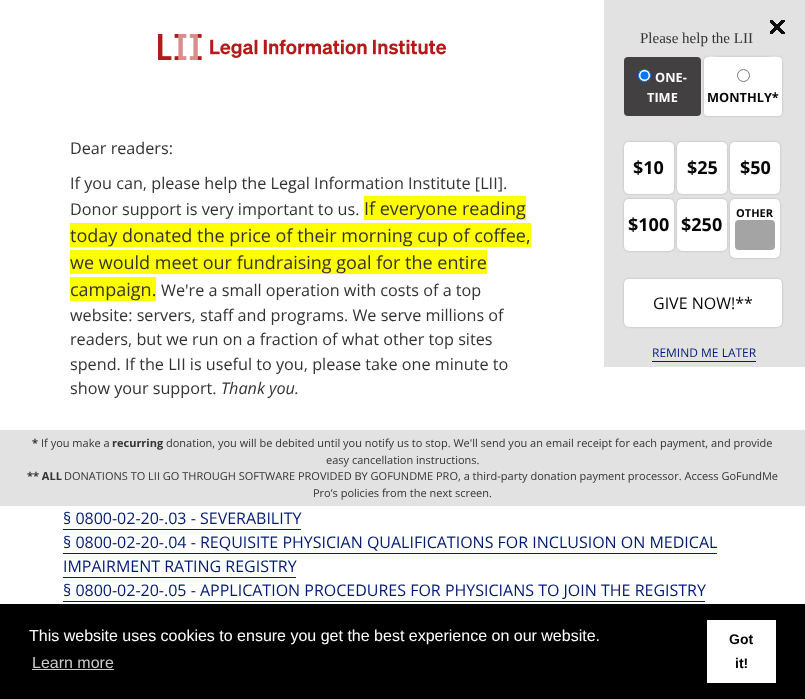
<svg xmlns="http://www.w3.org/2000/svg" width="805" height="699">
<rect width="100%" height="100%" fill="#fff"/>
<image x="158" y="34" width="288" height="26" href="media/1.png"/>
<text x="70" y="154" style="font-family:Open Sans;font-size:16.2px;fill:#333">Dear readers:</text>
<text x="70" y="189" style="font-family:Open Sans;font-size:16.2px;fill:#333">If you can, please help the Legal Information Institute [LII].</text>
<text x="70" y="215" style="font-family:Open Sans;font-size:16.2px;fill:#333">Donor support is very important to us.</text>
<rect x="364" y="196" width="162" height="24" fill="#ff0"/>
<text x="364" y="215" style="font-family:Open Sans;font-size:18px;fill:#333">If everyone reading</text>
<rect x="70" y="223" width="461" height="24" fill="#ff0"/>
<text x="70" y="242" style="font-family:Open Sans;font-size:18px;fill:#333">today donated the price of their morning cup of coffee,</text>
<rect x="70" y="250" width="417" height="24" fill="#ff0"/>
<text x="70" y="269" style="font-family:Open Sans;font-size:18px;fill:#333">we would meet our fundraising goal for the entire</text>
<rect x="70" y="277" width="86" height="24" fill="#ff0"/>
<text x="70" y="296" style="font-family:Open Sans;font-size:18px;fill:#333">campaign.</text>
<text x="161" y="296" style="font-family:Open Sans;font-size:16.2px;fill:#333">We're a small operation with costs of a top</text>
<text x="70" y="321" style="font-family:Open Sans;font-size:16.2px;fill:#333">website: servers, staff and programs. We serve millions of</text>
<text x="70" y="345" style="font-family:Open Sans;font-size:16.2px;fill:#333">readers, but we run on a fraction of what other top sites</text>
<text x="70" y="370" style="font-family:Open Sans;font-size:16.2px;fill:#333">spend. If the LII is useful to you, please take one minute to</text>
<text x="70" y="394" style="font-family:Open Sans;font-size:16.2px;fill:#333">show your support.</text>
<text x="221" y="394" style="font-family:Open Sans;font-size:16.2px;font-style:italic;fill:#333">Thank you.</text>
<rect x="604" width="201" height="367" fill="#e2e2e2"/>
<image x="770" y="20" width="15" height="14" href="media/2.png"/>
<text x="640" y="43" style="font-family:Liberation Serif;font-size:15px;fill:#333">Please help the LII</text>
<rect x="624" y="57" width="77" height="59" rx="4" fill="#424040"/>
<circle cx="644.5" cy="75.5" r="6" fill="#fff" stroke="#0075ff"/>
<circle cx="644.5" cy="75.5" r="4" fill="#0075ff"/>
<text x="655" y="82" style="font-family:Open Sans;font-size:12.75px;font-weight:bold;fill:#fff">ONE-</text>
<text x="647" y="102" style="font-family:Open Sans;font-size:12.75px;font-weight:bold;fill:#fff">TIME</text>
<rect x="704" y="57" width="78" height="59" rx="4" fill="#00000033" filter="blur(1px)"/>
<rect x="704" y="57" width="78" height="59" rx="4" fill="#fff"/>
<path d="M708 58h70c2 0 4 2 4 4c0-8-11-5-16-5h-46c-5 0-16-3-16 5c0-2 2-4 4-4z" fill="#ffffffbf"/>
<circle cx="743.5" cy="75.5" r="6" fill="none" stroke="#767676"/>
<text x="707" y="102" style="font-family:Open Sans;font-size:12.75px;font-weight:bold;fill:#050505">MONTHLY*</text>
<rect x="624" y="142" width="50" height="52" rx="5" fill="#00000033" filter="blur(1px)"/>
<rect x="624" y="142" width="50" height="52" rx="5" fill="#fff"/>
<path d="M629 143h33c12 0 12 0 12 12c0-12 1-13-12-13h-26c-8 0-12-1-12 7c0-3 1-6 5-6z" fill="#ffffffbf"/>
<text x="633" y="174" style="font-family:Open Sans;font-size:18px;font-weight:bold;fill:#050505">$10</text>
<rect x="677" y="142" width="50" height="52" rx="5" fill="#00000033" filter="blur(1px)"/>
<rect x="677" y="142" width="50" height="52" rx="5" fill="#fff"/>
<path d="M682 143h33c12 0 12 0 12 12c0-12 1-13-12-13h-26c-8 0-12-1-12 7c0-3 1-6 5-6z" fill="#ffffffbf"/>
<text x="687" y="174" style="font-family:Open Sans;font-size:18px;font-weight:bold;fill:#050505">$25</text>
<rect x="730" y="142" width="50" height="52" rx="5" fill="#00000033" filter="blur(1px)"/>
<rect x="730" y="142" width="50" height="52" rx="5" fill="#fff"/>
<path d="M735 143h33c12 0 12 0 12 12c0-12 1-13-12-13h-26c-8 0-12-1-12 7c0-3 1-6 5-6z" fill="#ffffffbf"/>
<text x="740" y="174" style="font-family:Open Sans;font-size:18px;font-weight:bold;fill:#050505">$50</text>
<rect x="624" y="199" width="50" height="52" rx="5" fill="#00000033" filter="blur(1px)"/>
<rect x="624" y="199" width="50" height="52" rx="5" fill="#fff"/>
<path d="M629 200h33c12 0 12 0 12 12c0-12 1-13-12-13h-26c-8 0-12-1-12 7c0-3 1-6 5-6z" fill="#ffffffbf"/>
<rect x="677" y="199" width="50" height="52" rx="5" fill="#00000033" filter="blur(1px)"/>
<rect x="677" y="199" width="50" height="52" rx="5" fill="#fff"/>
<path d="M682 200h33c12 0 12 0 12 12c0-12 1-13-12-13h-26c-8 0-12-1-12 7c0-3 1-6 5-6z" fill="#ffffffbf"/>
<rect x="730" y="199" width="50" height="59" rx="5" fill="#00000033" filter="blur(1px)"/>
<rect x="730" y="199" width="50" height="59" rx="5" fill="#fff"/>
<path d="M735 200h40c3 0 5 2 5 5c0-7-6-6-12-6h-26c-6 0-12-1-12 6c0-3 2-5 5-5z" fill="#ffffffbf"/>
<text x="736" y="217" style="font-family:Open Sans;font-size:11px;font-weight:bold;fill:#050505">OTHER</text>
<rect x="735" y="220" width="40" height="30" rx="4" fill="#a4a4a4"/>
<text x="628" y="231" style="font-family:Open Sans;font-size:18px;font-weight:bold;fill:#050505">$100</text>
<text x="681" y="231" style="font-family:Open Sans;font-size:18px;font-weight:bold;fill:#050505">$250</text>
<rect x="624" y="279" width="158" height="48" rx="5" fill="#00000033" filter="blur(1px)"/>
<rect x="624" y="279" width="158" height="48" rx="5" fill="#fff"/>
<path d="M629 280h148c3 0 5 2 5 5v-1c0-3-2-5-5-5h-148c-3 0-5 2-5 5v1c0-3 2-5 5-5z" fill="#ffffffbf"/>
<text x="653" y="309" style="font-family:Open Sans;font-size:16px;fill:#050505">GIVE NOW!**</text>
<text x="652" y="357" style="font-family:Open Sans;font-size:12px;fill:#001c72">REMIND ME LATER</text>
<rect x="652" y="361" width="104" height="1" fill="#001c72"/>
<rect y="430" width="805" height="76" fill="#e2e2e2"/>
<text x="32" y="447" style="font-family:Open Sans;font-size:11px;font-weight:bold;fill:#333">*</text>
<text x="41" y="447" style="font-family:Open Sans;font-size:11px;fill:#333">If you make a</text>
<text x="112" y="447" style="font-family:Open Sans;font-size:11px;font-weight:bold;fill:#333">recurring</text>
<text x="166" y="447" style="font-family:Open Sans;font-size:11px;fill:#333">donation, you will be debited until you notify us to stop. We'll send you an email receipt for each payment, and provide</text>
<text x="326" y="464" style="font-family:Open Sans;font-size:11px;fill:#333">easy cancellation instructions.</text>
<text x="27" y="480" style="font-family:Open Sans;font-size:11px;font-weight:bold;fill:#333">** ALL</text>
<text x="64" y="480" style="font-family:Open Sans;font-size:11px;fill:#333">DONATIONS TO LII GO THROUGH SOFTWARE PROVIDED BY GOFUNDME PRO, a third-party donation payment processor. Access GoFundMe</text>
<text x="313" y="497" style="font-family:Open Sans;font-size:11px;fill:#333">Pro’s policies from the next screen.</text>
<text x="63" y="524" style="font-family:Open Sans;font-size:16px;fill:#001c72">§ 0800-02-20-.03 - SEVERABILITY</text>
<rect x="63" y="529" width="238" height="1" fill="#001c72"/>
<text x="63" y="548" style="font-family:Open Sans;font-size:16px;fill:#001c72">§ 0800-02-20-.04 - REQUISITE PHYSICIAN QUALIFICATIONS FOR INCLUSION ON MEDICAL</text>
<rect x="63" y="553" width="654" height="1" fill="#001c72"/>
<text x="63" y="572" style="font-family:Open Sans;font-size:16px;fill:#001c72">IMPAIRMENT RATING REGISTRY</text>
<rect x="63" y="577" width="233" height="1" fill="#001c72"/>
<text x="63" y="596" style="font-family:Open Sans;font-size:16px;fill:#001c72">§ 0800-02-20-.05 - APPLICATION PROCEDURES FOR PHYSICIANS TO JOIN THE REGISTRY</text>
<rect x="63" y="601" width="642" height="1" fill="#001c72"/>
<rect y="604" width="805" height="95" fill="#000"/>
<text x="29" y="641" style="font-family:Liberation Sans;font-size:16px;fill:#fff">This website uses cookies to ensure you get the best experience on our website.</text>
<text x="32" y="668" style="font-family:Liberation Sans;font-size:16px;fill:#ccc">Learn more</text>
<rect x="32" y="669" width="82" height="1" fill="#ccc"/>
<rect x="707" y="620" width="69" height="63" fill="#fff"/>
<text x="729" y="644" style="font-family:Liberation Sans;font-size:14px;font-weight:bold;fill:#050505">Got</text>
<text x="735" y="668" style="font-family:Liberation Sans;font-size:14px;font-weight:bold;fill:#050505">it!</text>
</svg>
